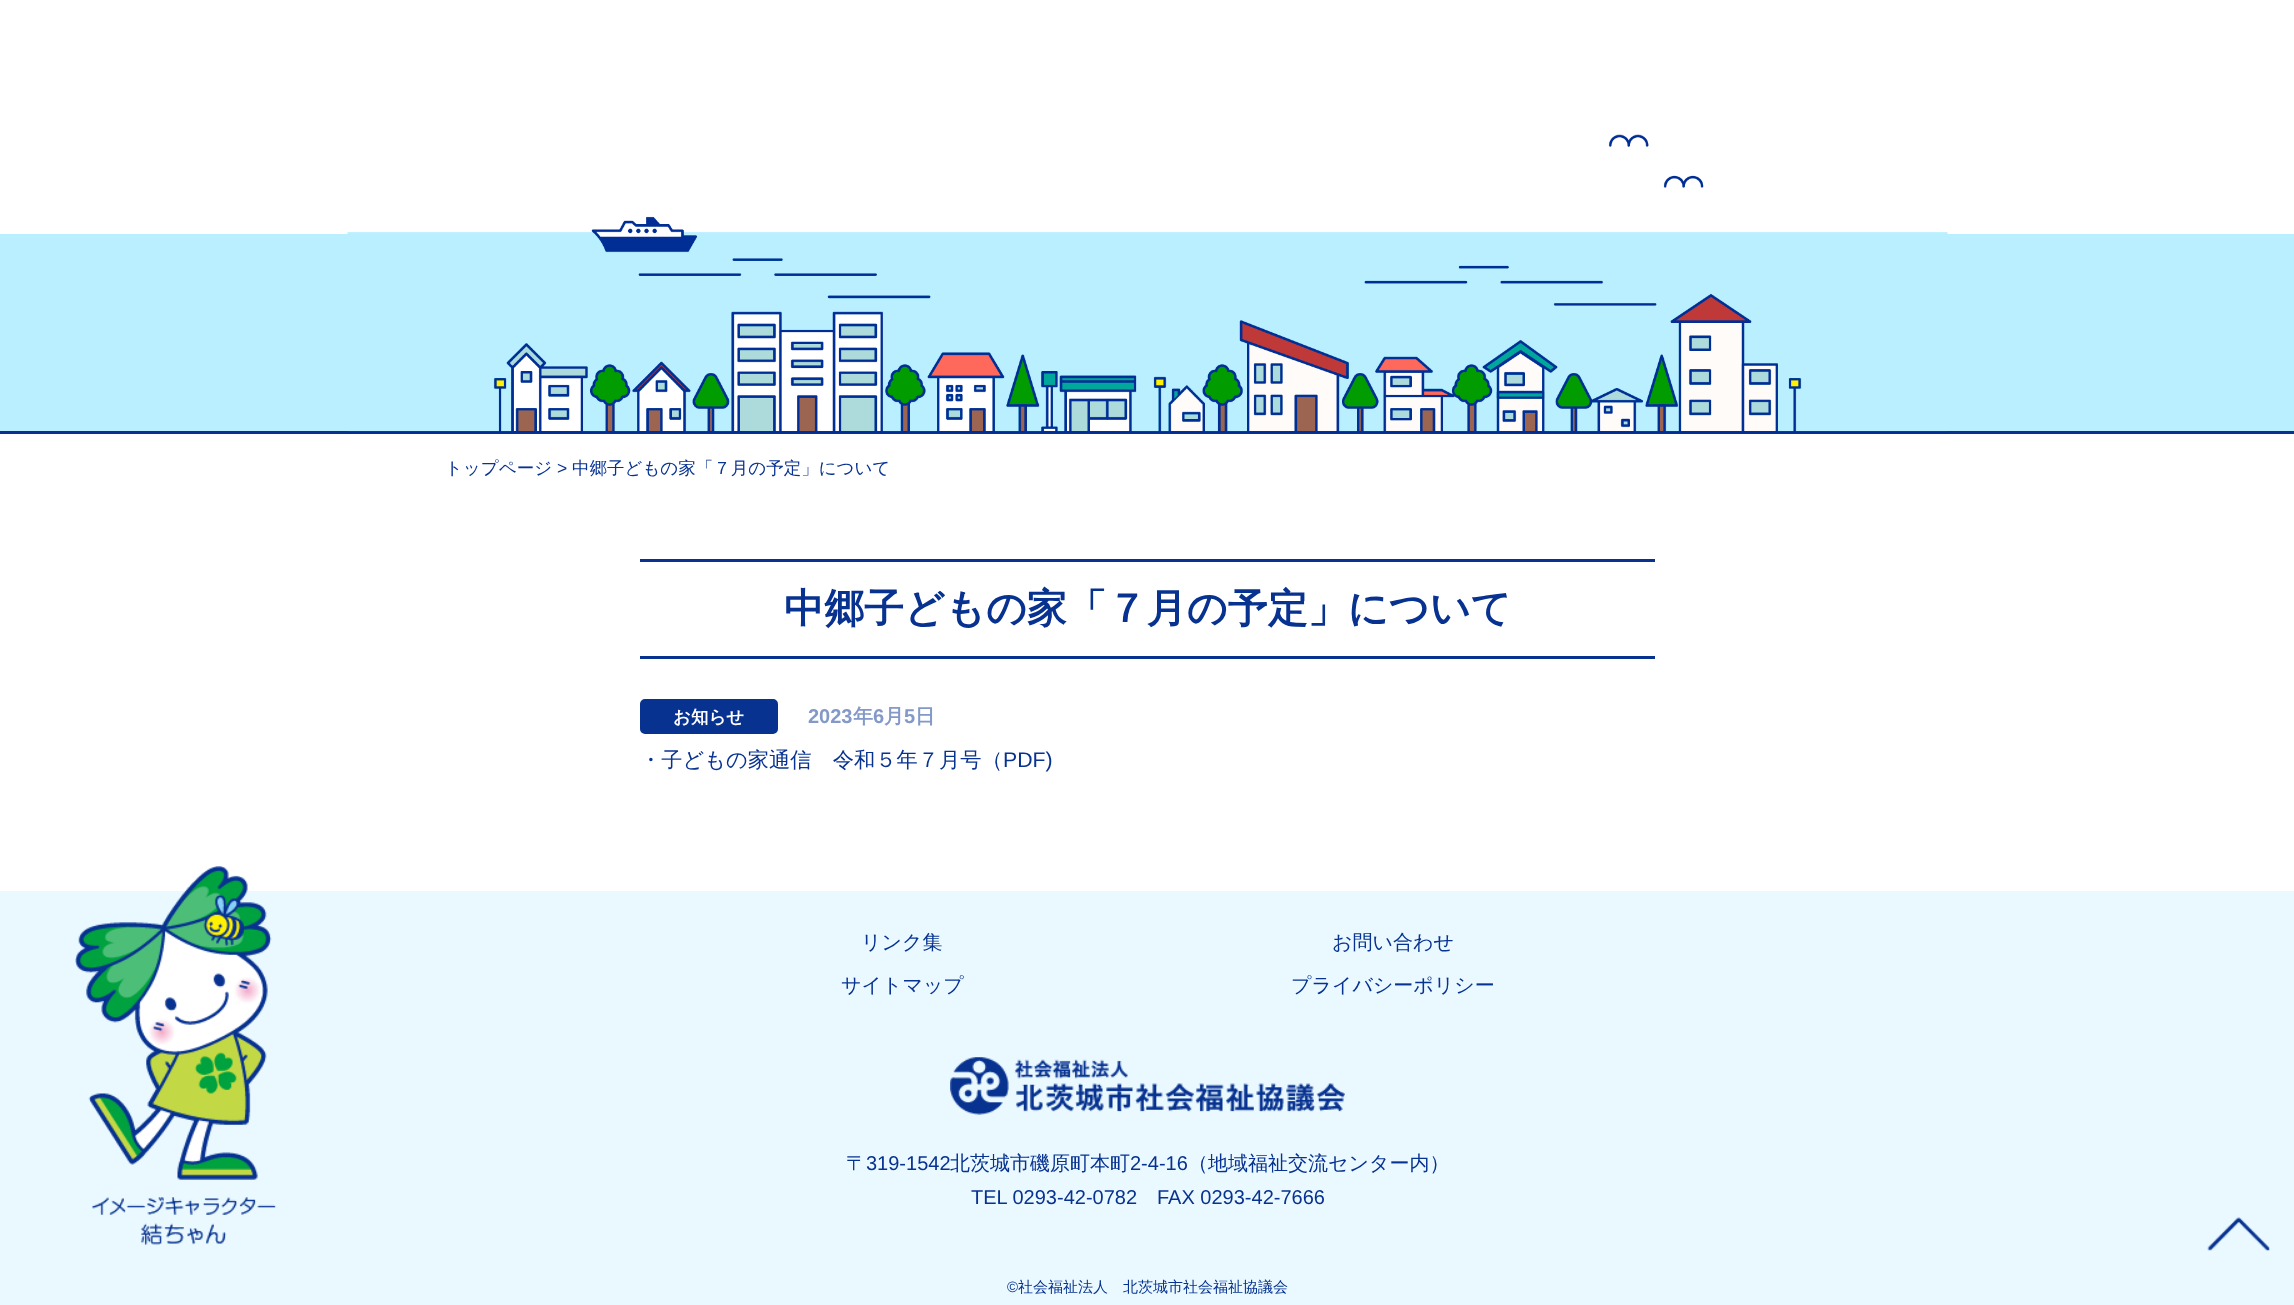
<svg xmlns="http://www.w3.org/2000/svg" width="2294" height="1305">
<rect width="100%" height="100%" fill="#fff"/>
<rect y="234" width="2294" height="197" fill="#baefff"/>
<rect y="431" width="2294" height="3" fill="#073290"/>
<image x="347" y="134" width="1601" height="299" href="media/1.png"/>
<text x="445" y="474" style="font-family:WenQuanYi Zen Hei;font-size:17.5px;font-weight:500;fill:#073290">トップページ</text>
<text x="557" y="474" style="font-family:Liberation Sans;font-size:17.5px;fill:#073290">&gt;</text>
<text x="572" y="474" style="font-family:WenQuanYi Zen Hei;font-size:17.5px;font-weight:500;fill:#073290">中郷子どもの家「７月の予定」について</text>
<rect x="640" y="559" width="1015" height="3" fill="#073290"/>
<rect x="640" y="656" width="1015" height="3" fill="#073290"/>
<text x="784" y="622" style="font-family:WenQuanYi Zen Hei;font-size:40px;font-weight:bold;fill:#073290">中郷子どもの家「７月の予定」について</text>
<rect x="641.5" y="700.5" width="135" height="32" rx="3.5" fill="#073290" stroke="#073290" stroke-width="3"/>
<text x="673" y="723" style="font-family:WenQuanYi Zen Hei;font-size:17.5px;font-weight:bold;fill:#fff">お知らせ</text>
<text x="808" y="723" style="font-family:Liberation Sans;font-size:20px;font-weight:bold;fill:#8399c8">2023</text>
<text x="853" y="723" style="font-family:WenQuanYi Zen Hei;font-size:20px;font-weight:bold;fill:#8399c8">年</text>
<text x="873" y="723" style="font-family:Liberation Sans;font-size:20px;font-weight:bold;fill:#8399c8">6</text>
<text x="884" y="723" style="font-family:WenQuanYi Zen Hei;font-size:20px;font-weight:bold;fill:#8399c8">月</text>
<text x="904" y="723" style="font-family:Liberation Sans;font-size:20px;font-weight:bold;fill:#8399c8">5</text>
<text x="915" y="723" style="font-family:WenQuanYi Zen Hei;font-size:20px;font-weight:bold;fill:#8399c8">日</text>
<text x="640" y="767" style="font-family:WenQuanYi Zen Hei;font-size:21.25px;font-weight:500;fill:#073290">・子どもの家通信　令和５年７月号（</text>
<text x="1003" y="767" style="font-family:Liberation Sans;font-size:21.25px;fill:#073290">PDF)</text>
<rect y="891" width="2294" height="414" fill="#eaf9ff"/>
<image x="75" y="866" width="201" height="379" href="media/2.png"/>
<text x="861" y="949" style="font-family:WenQuanYi Zen Hei;font-size:20px;font-weight:500;fill:#073290">リンク集</text>
<text x="1332" y="949" style="font-family:WenQuanYi Zen Hei;font-size:20px;font-weight:500;fill:#073290">お問い合わせ</text>
<text x="841" y="992" style="font-family:WenQuanYi Zen Hei;font-size:20px;font-weight:500;fill:#073290">サイトマップ</text>
<text x="1291" y="992" style="font-family:WenQuanYi Zen Hei;font-size:20px;font-weight:500;fill:#073290">プライバシーポリシー</text>
<image x="950" y="1057" width="395" height="58" href="media/3.png"/>
<text x="846" y="1170" style="font-family:WenQuanYi Zen Hei;font-size:20px;font-weight:500;fill:#073290">〒</text>
<text x="866" y="1170" style="font-family:Liberation Sans;font-size:20px;fill:#073290">319-1542</text>
<text x="950" y="1170" style="font-family:WenQuanYi Zen Hei;font-size:20px;font-weight:500;fill:#073290">北茨城市磯原町本町</text>
<text x="1130" y="1170" style="font-family:Liberation Sans;font-size:20px;fill:#073290">2-4-16</text>
<text x="1188" y="1170" style="font-family:WenQuanYi Zen Hei;font-size:20px;font-weight:500;fill:#073290">（地域福祉交流センター内）</text>
<text x="971" y="1204" style="font-family:Liberation Sans;font-size:20px;fill:#073290">TEL 0293-42-0782</text>
<text x="1157" y="1204" style="font-family:Liberation Sans;font-size:20px;fill:#073290">FAX 0293-42-7666</text>
<text x="1007" y="1292" style="font-family:Liberation Sans;font-size:15px;fill:#073290">©</text>
<text x="1018" y="1292" style="font-family:WenQuanYi Zen Hei;font-size:15px;font-weight:500;fill:#073290">社会福祉法人　北茨城市社会福祉協議会</text>
<image x="2207" y="1217" width="63" height="34" href="media/4.png"/>
</svg>
